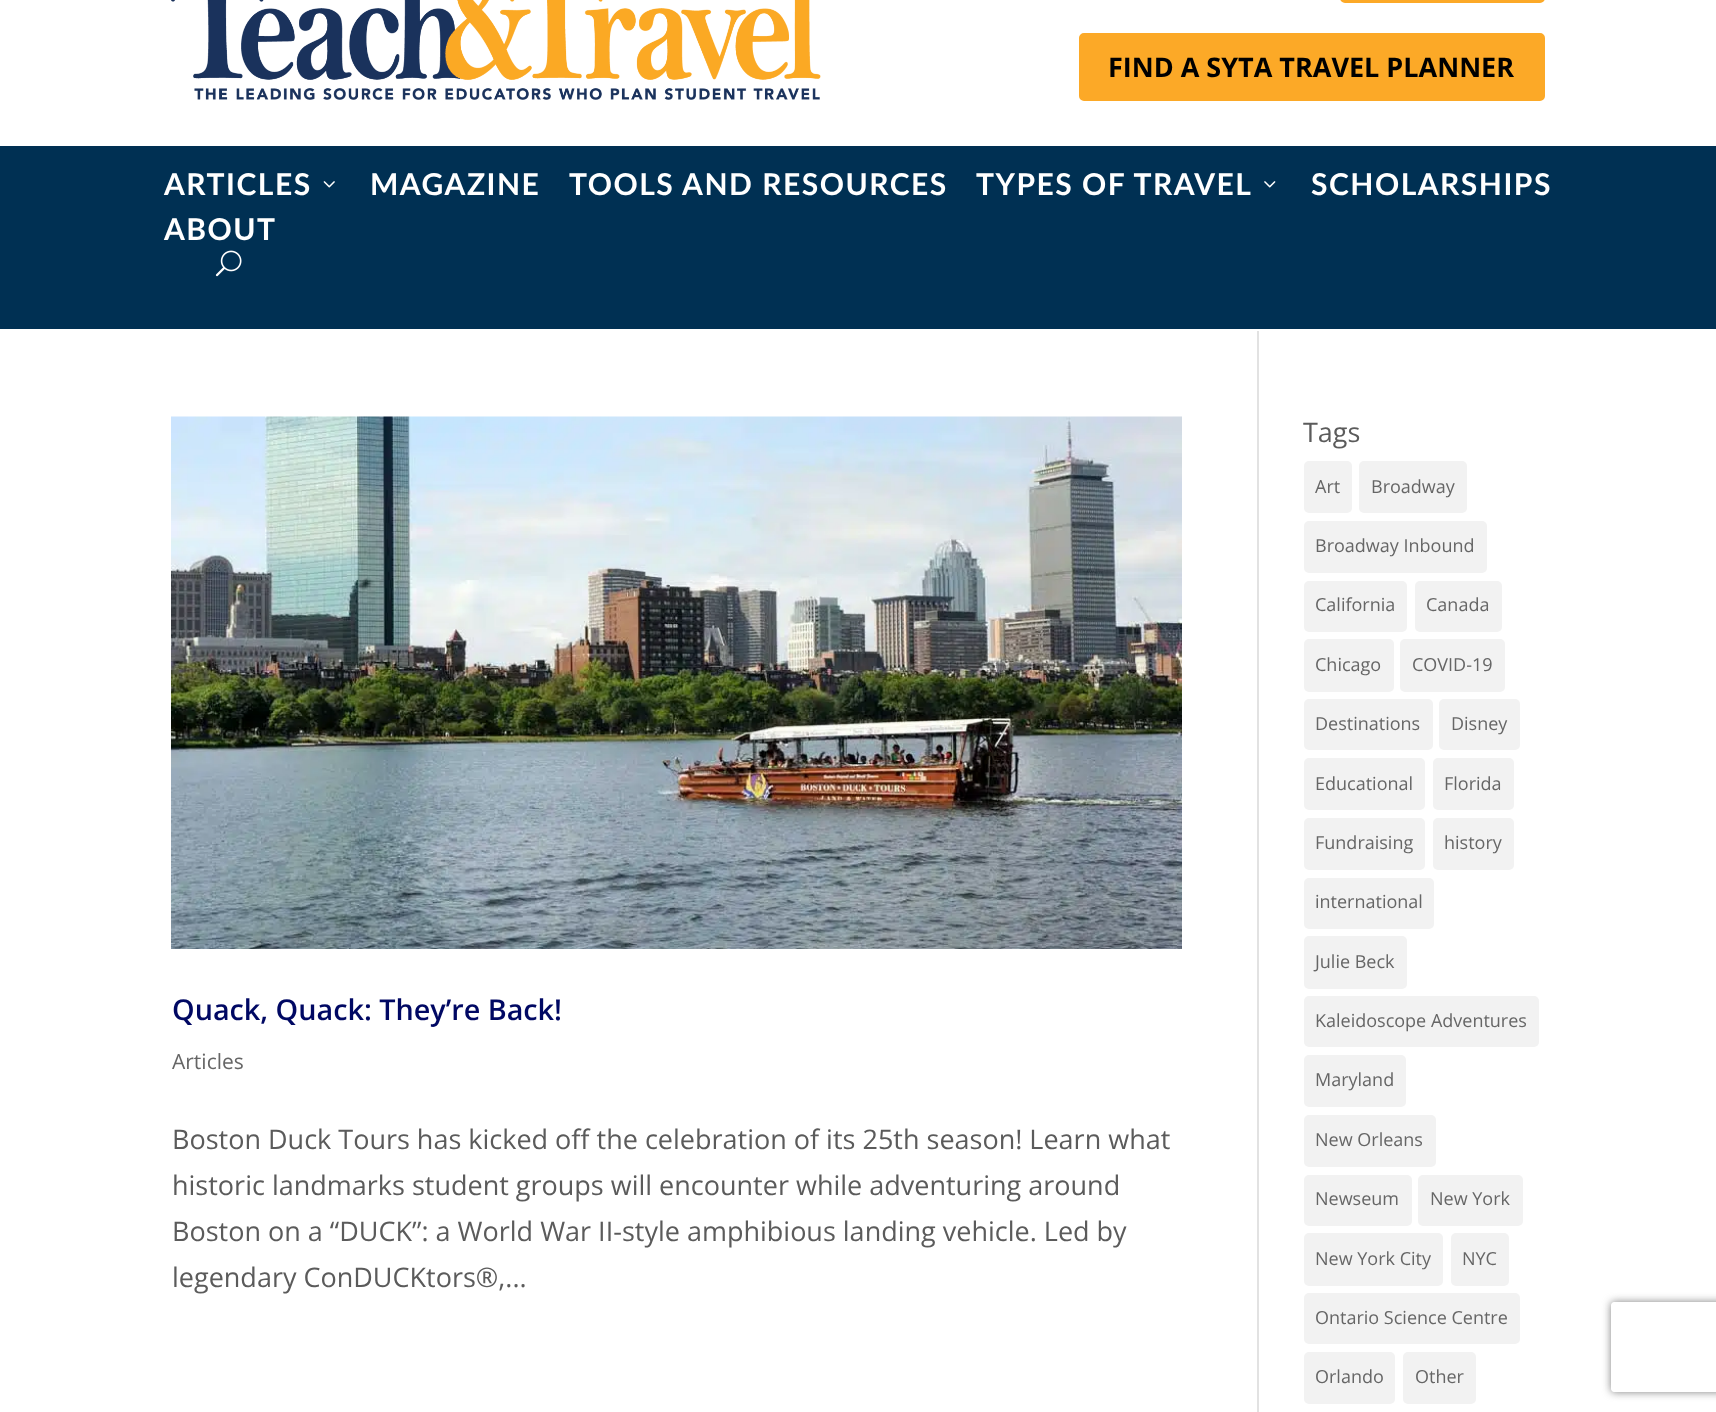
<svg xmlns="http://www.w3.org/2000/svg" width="1716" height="1412">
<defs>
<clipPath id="clip1"><path d="M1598 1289h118v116h-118zm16 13h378c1.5 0 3 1.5 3 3v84c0 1.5-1.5 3-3 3h-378c-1.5 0-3-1.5-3-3v-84c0-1.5 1.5-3 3-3z" clip-rule="evenodd"/></clipPath>
</defs>
<rect width="100%" height="100%" fill="#fff"/>
<image x="171" y="0" width="650" height="100" href="media/1.png"/>
<rect x="1341.5" y="-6.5" width="202" height="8" rx="3.5" fill="none" stroke="#fca927" stroke-width="3"/>
<rect x="1080.5" y="34.5" width="463" height="65" rx="3.5" fill="#fca927" stroke="#fca927" stroke-width="3"/>
<text x="1108" y="77" style="font-family:Open Sans;font-size:27px;font-weight:bold;fill:#000">FIND A SYTA TRAVEL PLANNER</text>
<rect y="146" width="1716" height="183" fill="#003053"/>
<text x="164" y="195" style="font-family:Lato;font-size:30px;font-weight:bold;letter-spacing:1.5px;fill:#fff">ARTICLES</text>
<image x="323" y="181" width="12" height="7" href="media/2.png"/>
<text x="370" y="195" style="font-family:Lato;font-size:30px;font-weight:bold;letter-spacing:1.5px;fill:#fff">MAGAZINE</text>
<text x="569" y="195" style="font-family:Lato;font-size:30px;font-weight:bold;letter-spacing:1.5px;fill:#fff">TOOLS AND RESOURCES</text>
<text x="976" y="195" style="font-family:Lato;font-size:30px;font-weight:bold;letter-spacing:1.5px;fill:#fff">TYPES OF TRAVEL</text>
<image x="1264" y="181" width="12" height="7" href="media/3.png"/>
<text x="1311" y="195" style="font-family:Lato;font-size:30px;font-weight:bold;letter-spacing:1.5px;fill:#fff">SCHOLARSHIPS</text>
<text x="164" y="240" style="font-family:Lato;font-size:30px;font-weight:bold;letter-spacing:1.5px;fill:#fff">ABOUT</text>
<image x="215" y="250" width="27" height="27" href="media/4.png"/>
<rect x="1257" y="330" width="2" height="1082" fill="#e2e2e2"/>
<rect x="1257" y="330" width="2" height="1" fill="#fff"/>
<image x="171" y="416" width="1011" height="533" href="media/5.png"/>
<text x="172" y="1020" style="font-family:Open Sans;font-size:28.75px;font-weight:600;fill:#000863">Quack, Quack: They’re Back!</text>
<text x="172" y="1069" style="font-family:Open Sans;font-size:21px;fill:#666">Articles</text>
<text x="172" y="1149" style="font-family:Open Sans;font-size:27px;fill:#5b5b5b">Boston Duck Tours has kicked off the celebration of its 25th season! Learn what</text>
<text x="172" y="1195" style="font-family:Open Sans;font-size:27px;fill:#5b5b5b">historic landmarks student groups will encounter while adventuring around</text>
<text x="172" y="1241" style="font-family:Open Sans;font-size:27px;fill:#5b5b5b">Boston on a “DUCK”: a World War II-style amphibious landing vehicle. Led by</text>
<text x="172" y="1287" style="font-family:Open Sans;font-size:27px;fill:#5b5b5b">legendary ConDUCKtors®,...</text>
<text x="1303" y="442" style="font-family:Open Sans;font-size:27px;fill:#5b5b5b">Tags</text>
<rect x="1304" y="461" width="48" height="52" rx="5" fill="#f2f2f2"/>
<text x="1315" y="493" style="font-family:Open Sans;font-size:18px;fill:#666">Art</text>
<rect x="1359" y="461" width="108" height="52" rx="5" fill="#f2f2f2"/>
<text x="1371" y="493" style="font-family:Open Sans;font-size:18px;fill:#666">Broadway</text>
<rect x="1304" y="521" width="183" height="52" rx="5" fill="#f2f2f2"/>
<text x="1315" y="552" style="font-family:Open Sans;font-size:18px;fill:#666">Broadway Inbound</text>
<rect x="1304" y="581" width="103" height="51" rx="5" fill="#f2f2f2"/>
<text x="1315" y="611" style="font-family:Open Sans;font-size:18px;fill:#666">California</text>
<rect x="1415" y="581" width="87" height="51" rx="5" fill="#f2f2f2"/>
<text x="1426" y="611" style="font-family:Open Sans;font-size:18px;fill:#666">Canada</text>
<rect x="1304" y="639" width="90" height="53" rx="5" fill="#f2f2f2"/>
<text x="1315" y="671" style="font-family:Open Sans;font-size:18px;fill:#666">Chicago</text>
<rect x="1400" y="639" width="105" height="53" rx="5" fill="#f2f2f2"/>
<text x="1412" y="671" style="font-family:Open Sans;font-size:18px;fill:#666">COVID-19</text>
<rect x="1304" y="699" width="129" height="51" rx="5" fill="#f2f2f2"/>
<text x="1315" y="730" style="font-family:Open Sans;font-size:18px;fill:#666">Destinations</text>
<rect x="1439" y="699" width="81" height="51" rx="5" fill="#f2f2f2"/>
<text x="1451" y="730" style="font-family:Open Sans;font-size:18px;fill:#666">Disney</text>
<rect x="1304" y="758" width="121" height="52" rx="5" fill="#f2f2f2"/>
<text x="1315" y="790" style="font-family:Open Sans;font-size:18px;fill:#666">Educational</text>
<rect x="1433" y="758" width="81" height="52" rx="5" fill="#f2f2f2"/>
<text x="1444" y="790" style="font-family:Open Sans;font-size:18px;fill:#666">Florida</text>
<rect x="1304" y="818" width="121" height="52" rx="5" fill="#f2f2f2"/>
<text x="1315" y="849" style="font-family:Open Sans;font-size:18px;fill:#666">Fundraising</text>
<rect x="1433" y="818" width="81" height="52" rx="5" fill="#f2f2f2"/>
<text x="1444" y="849" style="font-family:Open Sans;font-size:18px;fill:#666">history</text>
<rect x="1304" y="878" width="130" height="51" rx="5" fill="#f2f2f2"/>
<text x="1315" y="908" style="font-family:Open Sans;font-size:18px;fill:#666">international</text>
<rect x="1304" y="936" width="103" height="53" rx="5" fill="#f2f2f2"/>
<text x="1315" y="968" style="font-family:Open Sans;font-size:18px;fill:#666">Julie Beck</text>
<rect x="1304" y="996" width="235" height="51" rx="5" fill="#f2f2f2"/>
<text x="1315" y="1027" style="font-family:Open Sans;font-size:18px;fill:#666">Kaleidoscope Adventures</text>
<rect x="1304" y="1055" width="102" height="52" rx="5" fill="#f2f2f2"/>
<text x="1315" y="1086" style="font-family:Open Sans;font-size:18px;fill:#666">Maryland</text>
<rect x="1304" y="1115" width="132" height="52" rx="5" fill="#f2f2f2"/>
<text x="1315" y="1146" style="font-family:Open Sans;font-size:18px;fill:#666">New Orleans</text>
<rect x="1304" y="1175" width="108" height="51" rx="5" fill="#f2f2f2"/>
<text x="1315" y="1205" style="font-family:Open Sans;font-size:18px;fill:#666">Newseum</text>
<rect x="1418" y="1175" width="105" height="51" rx="5" fill="#f2f2f2"/>
<text x="1430" y="1205" style="font-family:Open Sans;font-size:18px;fill:#666">New York</text>
<rect x="1304" y="1233" width="139" height="53" rx="5" fill="#f2f2f2"/>
<text x="1315" y="1265" style="font-family:Open Sans;font-size:18px;fill:#666">New York City</text>
<rect x="1451" y="1233" width="58" height="53" rx="5" fill="#f2f2f2"/>
<text x="1462" y="1265" style="font-family:Open Sans;font-size:18px;fill:#666">NYC</text>
<rect x="1304" y="1293" width="216" height="51" rx="5" fill="#f2f2f2"/>
<text x="1315" y="1324" style="font-family:Open Sans;font-size:18px;fill:#666">Ontario Science Centre</text>
<rect x="1304" y="1352" width="91" height="52" rx="5" fill="#f2f2f2"/>
<text x="1315" y="1383" style="font-family:Open Sans;font-size:18px;fill:#666">Orlando</text>
<rect x="1403" y="1352" width="73" height="52" rx="5" fill="#f2f2f2"/>
<text x="1415" y="1383" style="font-family:Open Sans;font-size:18px;fill:#666">Other</text>
<g clip-path="url(#clip1)">
<rect x="1611" y="1302" width="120" height="90" rx="3" fill="#808080" filter="blur(4px)"/>
</g>
</svg>
